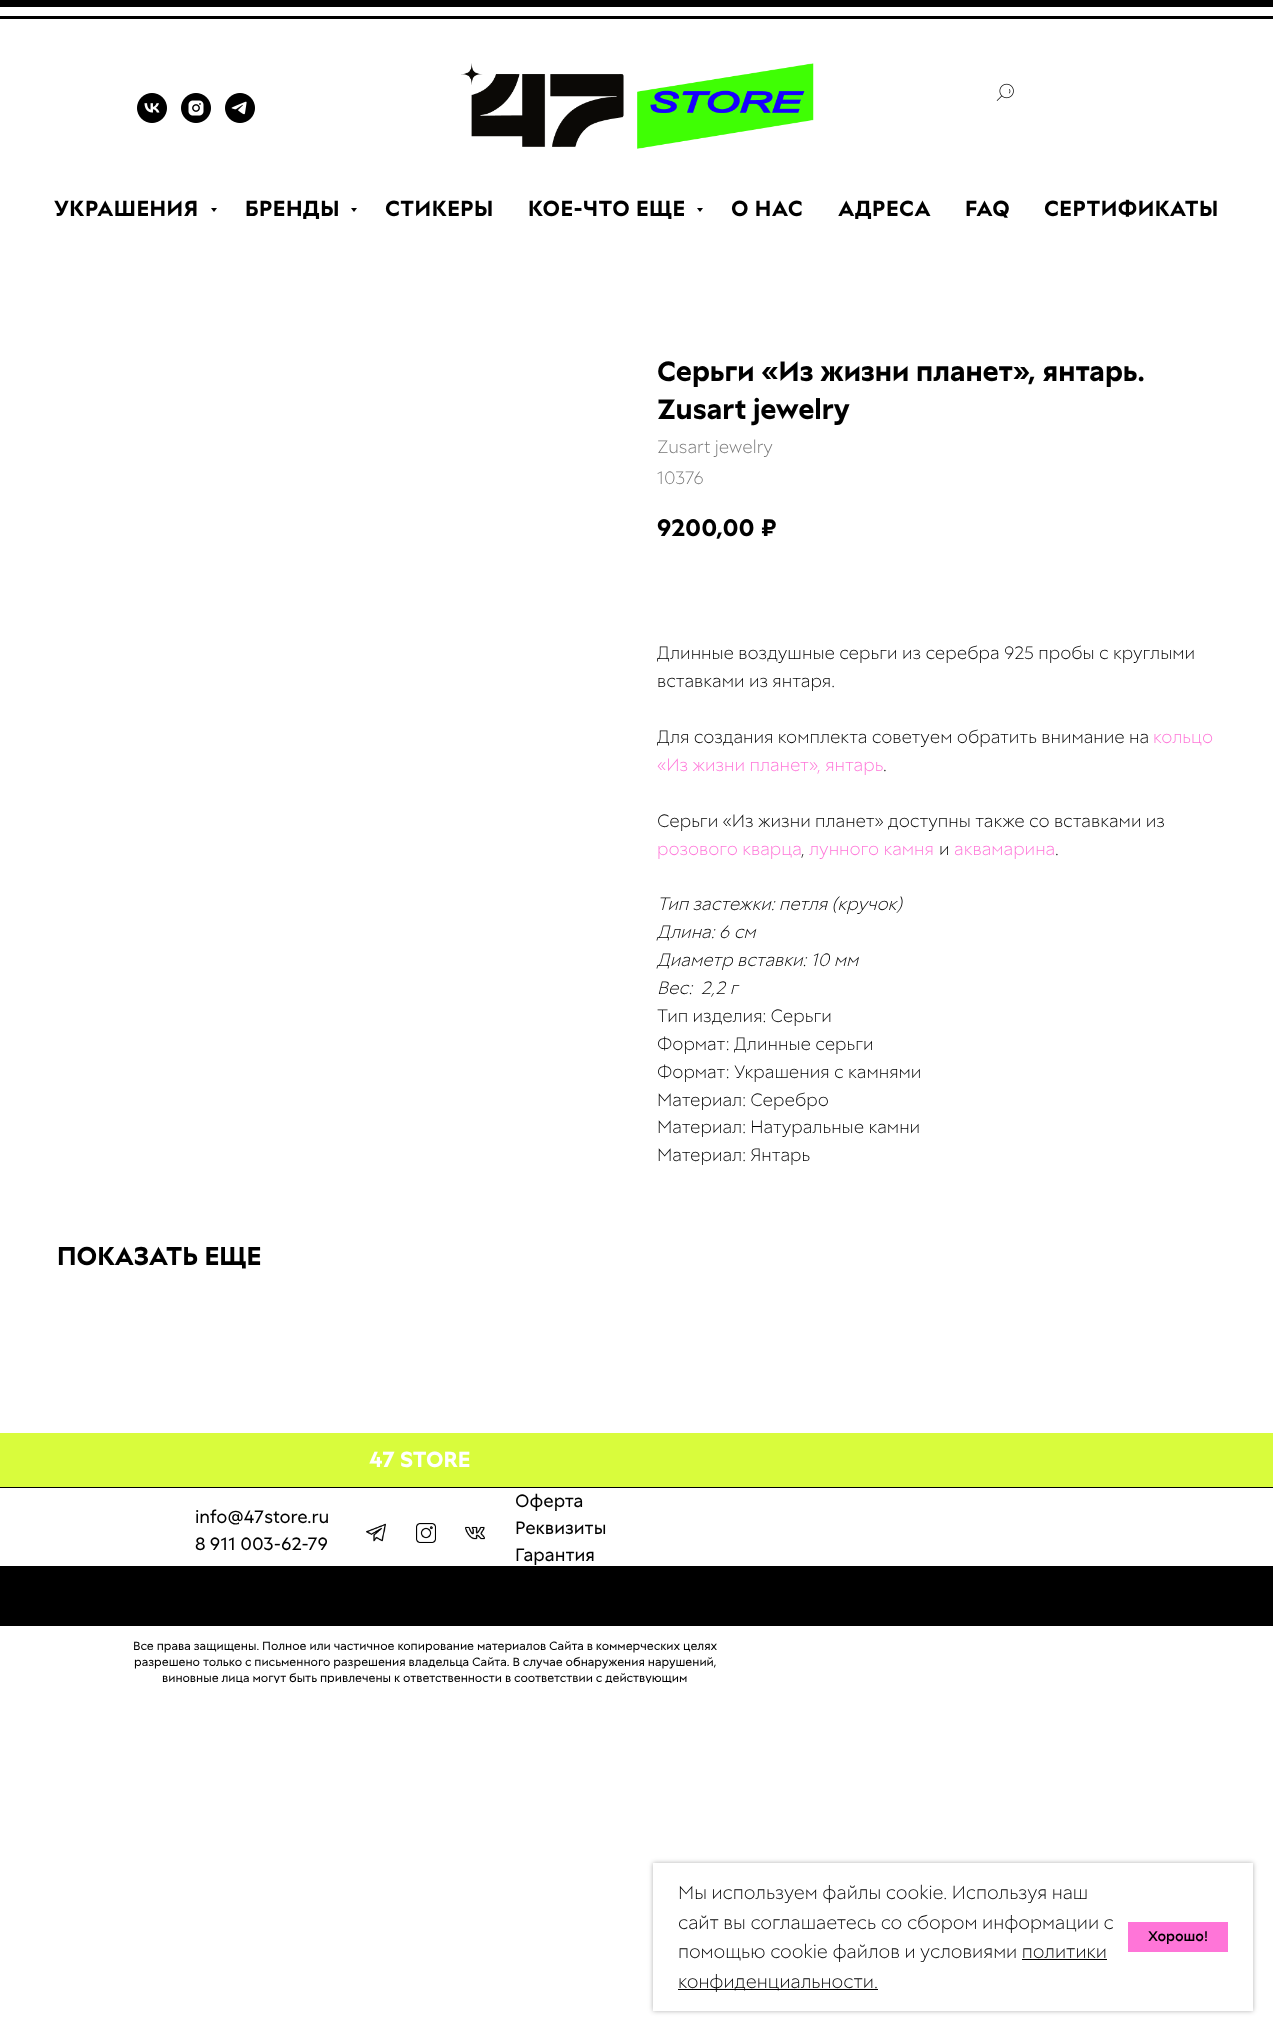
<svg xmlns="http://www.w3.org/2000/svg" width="1273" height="2041">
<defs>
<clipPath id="clip1"><path d="M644 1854h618v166h-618zm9 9h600v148h-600z" clip-rule="evenodd"/></clipPath>
<clipPath id="clip2"><rect y="1433" width="1273" height="250"/></clipPath>
</defs>
<rect width="100%" height="100%" fill="#fff"/>
<rect width="1273" height="7" fill="#000"/>
<rect y="16" width="1273" height="3" fill="#000"/>
<image x="996" y="83" width="18" height="18" href="media/1.png"/>
<image x="137" y="93" width="30" height="30" href="media/2.png"/>
<image x="181" y="93" width="30" height="30" href="media/3.png"/>
<image x="225" y="93" width="30" height="30" href="media/4.png"/>
<image x="461" y="63" width="353" height="86" href="media/5.png"/>
<text x="54" y="216" style="font-family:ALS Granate;font-size:22px;font-weight:bold;letter-spacing:0.5px;fill:#000">УКРАШЕНИЯ</text>
<path d="M211 208h6l-3 4z" fill="#000"/>
<text x="245" y="216" style="font-family:ALS Granate;font-size:22px;font-weight:bold;letter-spacing:0.5px;fill:#000">БРЕНДЫ</text>
<path d="M351 208h6l-3 4z" fill="#000"/>
<text x="385" y="216" style="font-family:ALS Granate;font-size:22px;font-weight:bold;letter-spacing:0.5px;fill:#000">СТИКЕРЫ</text>
<text x="528" y="216" style="font-family:ALS Granate;font-size:22px;font-weight:bold;letter-spacing:0.5px;fill:#000">КОЕ-ЧТО ЕЩЕ</text>
<path d="M697 208h6l-3 4z" fill="#000"/>
<text x="731" y="216" style="font-family:ALS Granate;font-size:22px;font-weight:bold;letter-spacing:0.5px;fill:#000">О НАС</text>
<text x="838" y="216" style="font-family:ALS Granate;font-size:22px;font-weight:bold;letter-spacing:0.5px;fill:#000">АДРЕСА</text>
<text x="965" y="216" style="font-family:ALS Granate;font-size:22px;font-weight:bold;letter-spacing:0.5px;fill:#000">FAQ</text>
<text x="1044" y="216" style="font-family:ALS Granate;font-size:22px;font-weight:bold;letter-spacing:0.5px;fill:#000">СЕРТИФИКАТЫ</text>
<g clip-path="url(#clip1)">
<rect x="653" y="1863" width="600" height="148" fill="#0000004d" filter="blur(2.5px)"/>
</g>
<text x="678" y="1899" style="font-family:ALS Granate;font-size:19px;font-weight:300;fill:#000">Мы используем файлы cookie. Используя наш</text>
<text x="678" y="1929" style="font-family:ALS Granate;font-size:19px;font-weight:300;fill:#000">сайт вы соглашаетесь со сбором информации с</text>
<text x="678" y="1958" style="font-family:ALS Granate;font-size:19px;font-weight:300;fill:#000">помощью cookie файлов и условиями политики</text>
<rect x="678" y="1989" width="200" height="1" fill="#000"/>
<text x="678" y="1988" style="font-family:ALS Granate;font-size:19px;font-weight:300;fill:#000">конфиденциальности.</text>
<rect x="1022" y="1959" width="85" height="1" fill="#000"/>
<rect x="1128" y="1922" width="100" height="30" fill="#ff75d8"/>
<text x="1148" y="1941" style="font-family:ALS Granate;font-size:14px;font-weight:500;fill:#000">Хорошо!</text>
<text x="657" y="381" style="font-family:ALS Granate;font-size:28px;font-weight:bold;fill:#000">Серьги «Из жизни планет», янтарь.</text>
<text x="657" y="419" style="font-family:ALS Granate;font-size:28px;font-weight:bold;fill:#000">Zusart jewelry</text>
<text x="657" y="453" style="font-family:ALS Granate;font-size:18px;font-weight:300;fill:#777">Zusart jewelry</text>
<text x="657" y="484" style="font-family:ALS Granate;font-size:18px;font-weight:300;fill:#777">10376</text>
<text x="657" y="536" style="font-family:ALS Granate;font-size:24px;font-weight:bold;fill:#000">9200,00</text>
<text x="761" y="536" style="font-family:ALS Granate;font-size:24px;font-weight:bold;fill:#000">₽</text>
<text x="657" y="659" style="font-family:ALS Granate;font-size:18px;font-weight:300;fill:#000">Длинные воздушные серьги из серебра 925 пробы с круглыми</text>
<text x="657" y="687" style="font-family:ALS Granate;font-size:18px;font-weight:300;fill:#000">вставками из янтаря.</text>
<text x="657" y="743" style="font-family:ALS Granate;font-size:18px;font-weight:300;fill:#000">Для создания комплекта советуем обратить внимание на</text>
<text x="1153" y="743" style="font-family:ALS Granate;font-size:18px;font-weight:300;fill:#ff75d8">кольцо</text>
<text x="657" y="771" style="font-family:ALS Granate;font-size:18px;font-weight:300;fill:#ff75d8">«Из жизни планет», янтарь</text>
<text x="883" y="771" style="font-family:ALS Granate;font-size:18px;font-weight:300;fill:#000">.</text>
<text x="657" y="827" style="font-family:ALS Granate;font-size:18px;font-weight:300;fill:#000">Серьги «Из жизни планет» доступны также со вставками из</text>
<text x="657" y="855" style="font-family:ALS Granate;font-size:18px;font-weight:300;fill:#ff75d8">розового кварца</text>
<text x="801" y="855" style="font-family:ALS Granate;font-size:18px;font-weight:300;fill:#000">,</text>
<text x="809" y="855" style="font-family:ALS Granate;font-size:18px;font-weight:300;fill:#ff75d8">лунного камня</text>
<text x="939" y="855" style="font-family:ALS Granate;font-size:18px;font-weight:300;fill:#000">и</text>
<text x="954" y="855" style="font-family:ALS Granate;font-size:18px;font-weight:300;fill:#ff75d8">аквамарина</text>
<text x="1055" y="855" style="font-family:ALS Granate;font-size:18px;font-weight:300;fill:#000">.</text>
<text x="657" y="910" style="font-family:ALS Granate;font-size:18px;font-weight:300;font-style:italic;fill:#000">Тип застежки: петля (кручок)</text>
<text x="657" y="938" style="font-family:ALS Granate;font-size:18px;font-weight:300;font-style:italic;fill:#000">Длина: 6 см</text>
<text x="657" y="966" style="font-family:ALS Granate;font-size:18px;font-weight:300;font-style:italic;fill:#000">Диаметр вставки: 10 мм</text>
<text x="657" y="994" style="font-family:ALS Granate;font-size:18px;font-weight:300;font-style:italic;fill:#000" xml:space="preserve">Вес:  2,2 г</text>
<text x="657" y="1022" style="font-family:ALS Granate;font-size:18px;font-weight:300;fill:#000">Тип изделия: Серьги</text>
<text x="657" y="1050" style="font-family:ALS Granate;font-size:18px;font-weight:300;fill:#000">Формат: Длинные серьги</text>
<text x="657" y="1078" style="font-family:ALS Granate;font-size:18px;font-weight:300;fill:#000">Формат: Украшения с камнями</text>
<text x="657" y="1106" style="font-family:ALS Granate;font-size:18px;font-weight:300;fill:#000">Материал: Серебро</text>
<text x="657" y="1133" style="font-family:ALS Granate;font-size:18px;font-weight:300;fill:#000">Материал: Натуральные камни</text>
<text x="657" y="1161" style="font-family:ALS Granate;font-size:18px;font-weight:300;fill:#000">Материал: Янтарь</text>
<text x="57" y="1265" style="font-family:ALS Granate;font-size:26px;font-weight:bold;fill:#000">ПОКАЗАТЬ ЕЩЕ</text>
<rect y="1433" width="1273" height="54" fill="#d9fc3c"/>
<g clip-path="url(#clip2)">
<rect x="-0.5" y="1428.5" width="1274" height="59" fill="none" stroke="#000"/>
</g>
<text x="369" y="1467" style="font-family:ALS Granate;font-size:22px;font-weight:bold;fill:#fff">47 STORE</text>
<text x="195" y="1523" style="font-family:ALS Granate;font-size:18px;fill:#000">info@47store.ru</text>
<text x="515" y="1507" style="font-family:ALS Granate;font-size:18px;fill:#000">Оферта</text>
<text x="515" y="1534" style="font-family:ALS Granate;font-size:18px;fill:#000">Реквизиты</text>
<text x="515" y="1561" style="font-family:ALS Granate;font-size:18px;fill:#000">Гарантия</text>
<image x="366" y="1523" width="20" height="19" href="media/6.png"/>
<image x="416" y="1523" width="20" height="20" href="media/7.png"/>
<image x="465" y="1526" width="20" height="14" href="media/8.png"/>
<text x="195" y="1550" style="font-family:ALS Granate;font-size:18px;fill:#000">8 911 003-62-79</text>
<rect y="1566" width="1273" height="60" fill="#000"/>
<text x="133" y="1650" style="font-family:ALS Granate;font-size:12px;fill:#000">Все права защищены. Полное или частичное копирование материалов Сайта в коммерческих целях</text>
<text x="134" y="1666" style="font-family:ALS Granate;font-size:12px;fill:#000">разрешено только с письменного разрешения владельца Сайта. В случае обнаружения нарушений,</text>
<g clip-path="url(#clip2)">
<text x="162" y="1682" style="font-family:ALS Granate;font-size:12px;fill:#000">виновные лица могут быть привлечены к ответственности в соответствии с действующим</text>
</g>
</svg>
